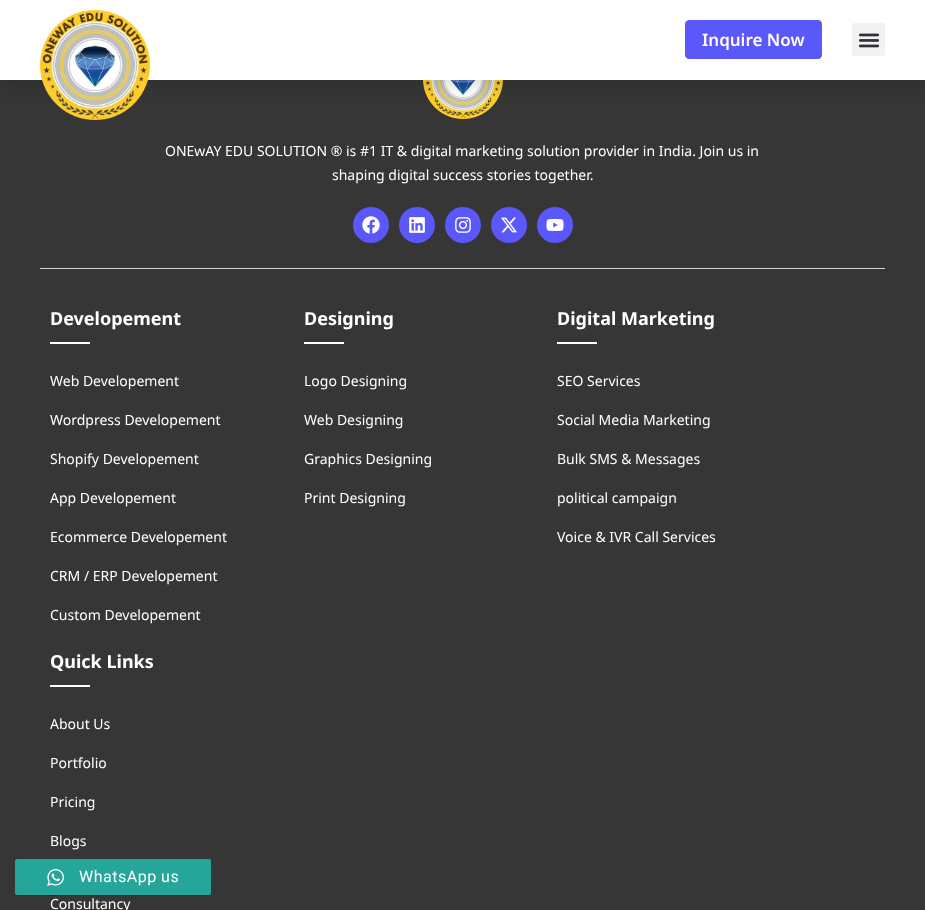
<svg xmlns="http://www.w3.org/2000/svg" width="925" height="910">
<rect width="100%" height="100%" fill="#363636"/>
<image x="423" y="80" width="80" height="39" href="media/3.png"/>
<rect y="8" width="925" height="80" fill="#0000001a" filter="blur(7.5px)"/>
<rect width="925" height="80" fill="#fff"/>
<image x="40" y="10" width="110" height="110" href="media/1.png"/>
<rect x="685.5" y="20.5" width="136" height="38" rx="3.5" fill="#5a57fb" stroke="#5a57fb"/>
<text x="702" y="46" style="font-family:Noto Sans;font-size:17px;font-weight:600;fill:#fff">Inquire Now</text>
<rect x="852" y="23" width="33" height="33" rx="3" fill="#f2f2f2"/>
<image x="858" y="33" width="22" height="15" href="media/2.png"/>
<text x="165" y="156" style="font-family:Noto Sans;font-size:14px;fill:#fff">ONEwAY EDU SOLUTION ® is #1 IT &amp; digital marketing solution provider in India. Join us in</text>
<text x="332" y="180" style="font-family:Noto Sans;font-size:14px;fill:#fff">shaping digital success stories together.</text>
<circle cx="371" cy="225" r="18" fill="#5a57fb"/>
<image x="362" y="216" width="18" height="18" href="media/4.png"/>
<circle cx="417" cy="225" r="18" fill="#5a57fb"/>
<image x="409" y="217" width="16" height="16" href="media/5.png"/>
<circle cx="463" cy="225" r="18" fill="#5a57fb"/>
<image x="455" y="217" width="16" height="16" href="media/6.png"/>
<circle cx="509" cy="225" r="18" fill="#5a57fb"/>
<image x="501" y="217" width="16" height="16" href="media/7.png"/>
<circle cx="555" cy="225" r="18" fill="#5a57fb"/>
<image x="546" y="219" width="18" height="12" href="media/8.png"/>
<rect x="40" y="268" width="845" height="1" fill="#d3d3d3"/>
<text x="50" y="325" style="font-family:Noto Sans;font-size:18px;font-weight:bold;fill:#fff">Developement</text>
<rect x="50" y="342" width="40" height="2" fill="#fff"/>
<text x="50" y="386" style="font-family:Noto Sans;font-size:14px;fill:#fff">Web Developement</text>
<text x="50" y="425" style="font-family:Noto Sans;font-size:14px;fill:#fff">Wordpress Developement</text>
<text x="50" y="464" style="font-family:Noto Sans;font-size:14px;fill:#fff">Shopify Developement</text>
<text x="50" y="503" style="font-family:Noto Sans;font-size:14px;fill:#fff">App Developement</text>
<text x="50" y="542" style="font-family:Noto Sans;font-size:14px;fill:#fff">Ecommerce Developement</text>
<text x="50" y="581" style="font-family:Noto Sans;font-size:14px;fill:#fff">CRM / ERP Developement</text>
<text x="50" y="620" style="font-family:Noto Sans;font-size:14px;fill:#fff">Custom Developement</text>
<text x="304" y="325" style="font-family:Noto Sans;font-size:18px;font-weight:bold;fill:#fff">Designing</text>
<rect x="304" y="342" width="40" height="2" fill="#fff"/>
<text x="304" y="386" style="font-family:Noto Sans;font-size:14px;fill:#fff">Logo Designing</text>
<text x="304" y="425" style="font-family:Noto Sans;font-size:14px;fill:#fff">Web Designing</text>
<text x="304" y="464" style="font-family:Noto Sans;font-size:14px;fill:#fff">Graphics Designing</text>
<text x="304" y="503" style="font-family:Noto Sans;font-size:14px;fill:#fff">Print Designing</text>
<text x="557" y="325" style="font-family:Noto Sans;font-size:18px;font-weight:bold;fill:#fff">Digital Marketing</text>
<rect x="557" y="342" width="40" height="2" fill="#fff"/>
<text x="557" y="386" style="font-family:Noto Sans;font-size:14px;fill:#fff">SEO Services</text>
<text x="557" y="425" style="font-family:Noto Sans;font-size:14px;fill:#fff">Social Media Marketing</text>
<text x="557" y="464" style="font-family:Noto Sans;font-size:14px;fill:#fff">Bulk SMS &amp; Messages</text>
<text x="557" y="503" style="font-family:Noto Sans;font-size:14px;fill:#fff">political campaign</text>
<text x="557" y="542" style="font-family:Noto Sans;font-size:14px;fill:#fff">Voice &amp; IVR Call Services</text>
<text x="50" y="668" style="font-family:Noto Sans;font-size:18px;font-weight:bold;fill:#fff">Quick Links</text>
<rect x="50" y="685" width="40" height="2" fill="#fff"/>
<text x="50" y="729" style="font-family:Noto Sans;font-size:14px;fill:#fff">About Us</text>
<text x="50" y="768" style="font-family:Noto Sans;font-size:14px;fill:#fff">Portfolio</text>
<text x="50" y="807" style="font-family:Noto Sans;font-size:14px;fill:#fff">Pricing</text>
<text x="50" y="846" style="font-family:Noto Sans;font-size:14px;fill:#fff">Blogs</text>
<text x="50" y="909" style="font-family:Noto Sans;font-size:14px;fill:#fff">Consultancy</text>
<rect x="17" y="864" width="192" height="32" fill="#00000033" filter="blur(0.5px)"/>
<rect x="15" y="859" width="196" height="36" rx="2" fill="#26a69a"/>
<image x="47" y="869" width="17" height="17" href="media/9.png"/>
<text x="79" y="882" style="font-family:Roboto;font-size:16px;letter-spacing:0.5px;fill:#fff">WhatsApp us</text>
</svg>
